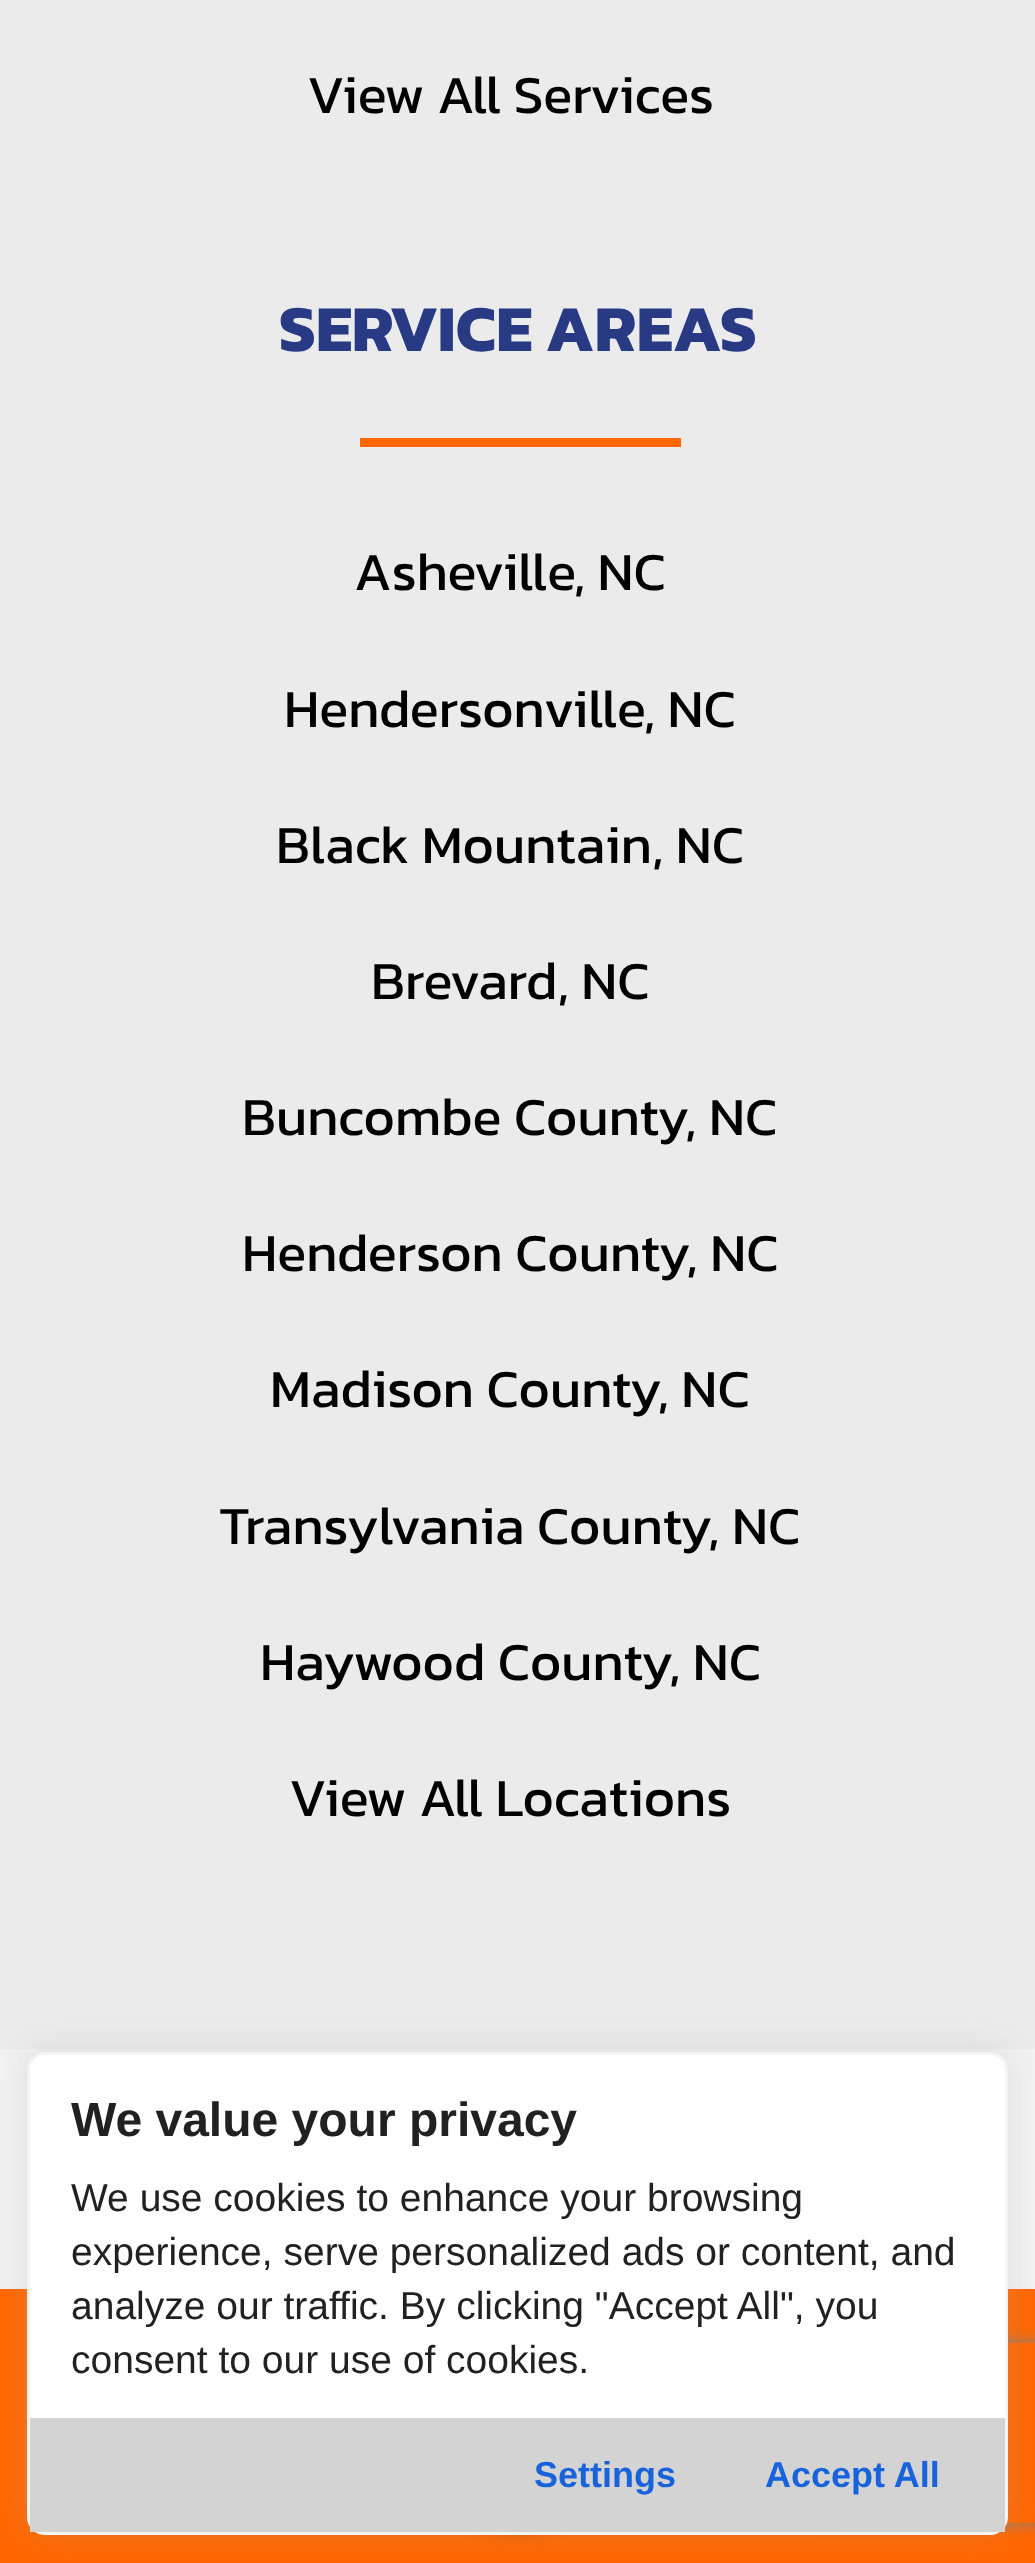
<svg xmlns="http://www.w3.org/2000/svg" width="1035" height="2563">
<defs>
<clipPath id="clip1"><path d="M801 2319h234v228h-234zm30 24h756c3.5 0 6 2.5 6 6v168c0 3.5-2.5 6-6 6h-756c-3.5 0-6-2.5-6-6v-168c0-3.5 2.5-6 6-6z" clip-rule="evenodd"/></clipPath>
</defs>
<rect width="100%" height="100%" fill="#f2f2f2"/>
<rect width="1035" height="2049" fill="#ebebeb"/>
<text x="307" y="113" style="font-family:Kanit;font-size:54px;fill:#000">View All Services</text>
<text x="279" y="351" style="font-family:Kanit;font-size:66px;font-weight:bold;fill:#273a83">SERVICE AREAS</text>
<rect x="360" y="438" width="321" height="9" fill="#f60"/>
<text x="354" y="590" style="font-family:Kanit;font-size:54px;fill:#000">Asheville, NC</text>
<text x="284" y="727" style="font-family:Kanit;font-size:54px;fill:#000">Hendersonville, NC</text>
<text x="276" y="863" style="font-family:Kanit;font-size:54px;fill:#000">Black Mountain, NC</text>
<text x="371" y="999" style="font-family:Kanit;font-size:54px;fill:#000">Brevard, NC</text>
<text x="242" y="1135" style="font-family:Kanit;font-size:54px;fill:#000">Buncombe County, NC</text>
<text x="242" y="1271" style="font-family:Kanit;font-size:54px;fill:#000">Henderson County, NC</text>
<text x="270" y="1407" style="font-family:Kanit;font-size:54px;fill:#000">Madison County, NC</text>
<text x="219" y="1544" style="font-family:Kanit;font-size:54px;fill:#000">Transylvania County, NC</text>
<text x="260" y="1680" style="font-family:Kanit;font-size:54px;fill:#000">Haywood County, NC</text>
<text x="289" y="1816" style="font-family:Kanit;font-size:54px;fill:#000">View All Locations</text>
<rect y="2289" width="1035" height="274" fill="#f60"/>
<rect x="27" y="2049" width="981" height="483" rx="18" fill="#acabab4d" filter="blur(15px)"/>
<rect x="435" y="2364" width="165" height="165" rx="82.5" fill="#0000004d" filter="blur(9px)"/>
<g clip-path="url(#clip1)">
<rect x="825" y="2343" width="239" height="180" rx="6" fill="#808080" filter="blur(7.5px)"/>
</g>
<rect x="28.5" y="2053.5" width="978" height="480" rx="16.5" fill="#fff" stroke="#f4f4f4" stroke-width="3"/>
<text x="71" y="2136" style="font-family:Liberation Sans;font-size:48px;font-weight:bold;fill:#212121">We value your privacy</text>
<text x="71" y="2211" style="font-family:Liberation Sans;font-size:39px;fill:#212121">We use cookies to enhance your browsing</text>
<text x="71" y="2265" style="font-family:Liberation Sans;font-size:39px;fill:#212121">experience, serve personalized ads or content, and</text>
<text x="71" y="2319" style="font-family:Liberation Sans;font-size:39px;fill:#212121">analyze our traffic. By clicking "Accept All", you</text>
<text x="71" y="2373" style="font-family:Liberation Sans;font-size:39px;fill:#212121">consent to our use of cookies.</text>
<rect x="30" y="2418" width="975" height="114" fill="#d3d3d3"/>
<text x="534" y="2487" style="font-family:Liberation Sans;font-size:36px;font-weight:bold;fill:#1863dc">Settings</text>
<text x="765" y="2487" style="font-family:Liberation Sans;font-size:36px;font-weight:bold;fill:#1863dc">Accept All</text>
</svg>
